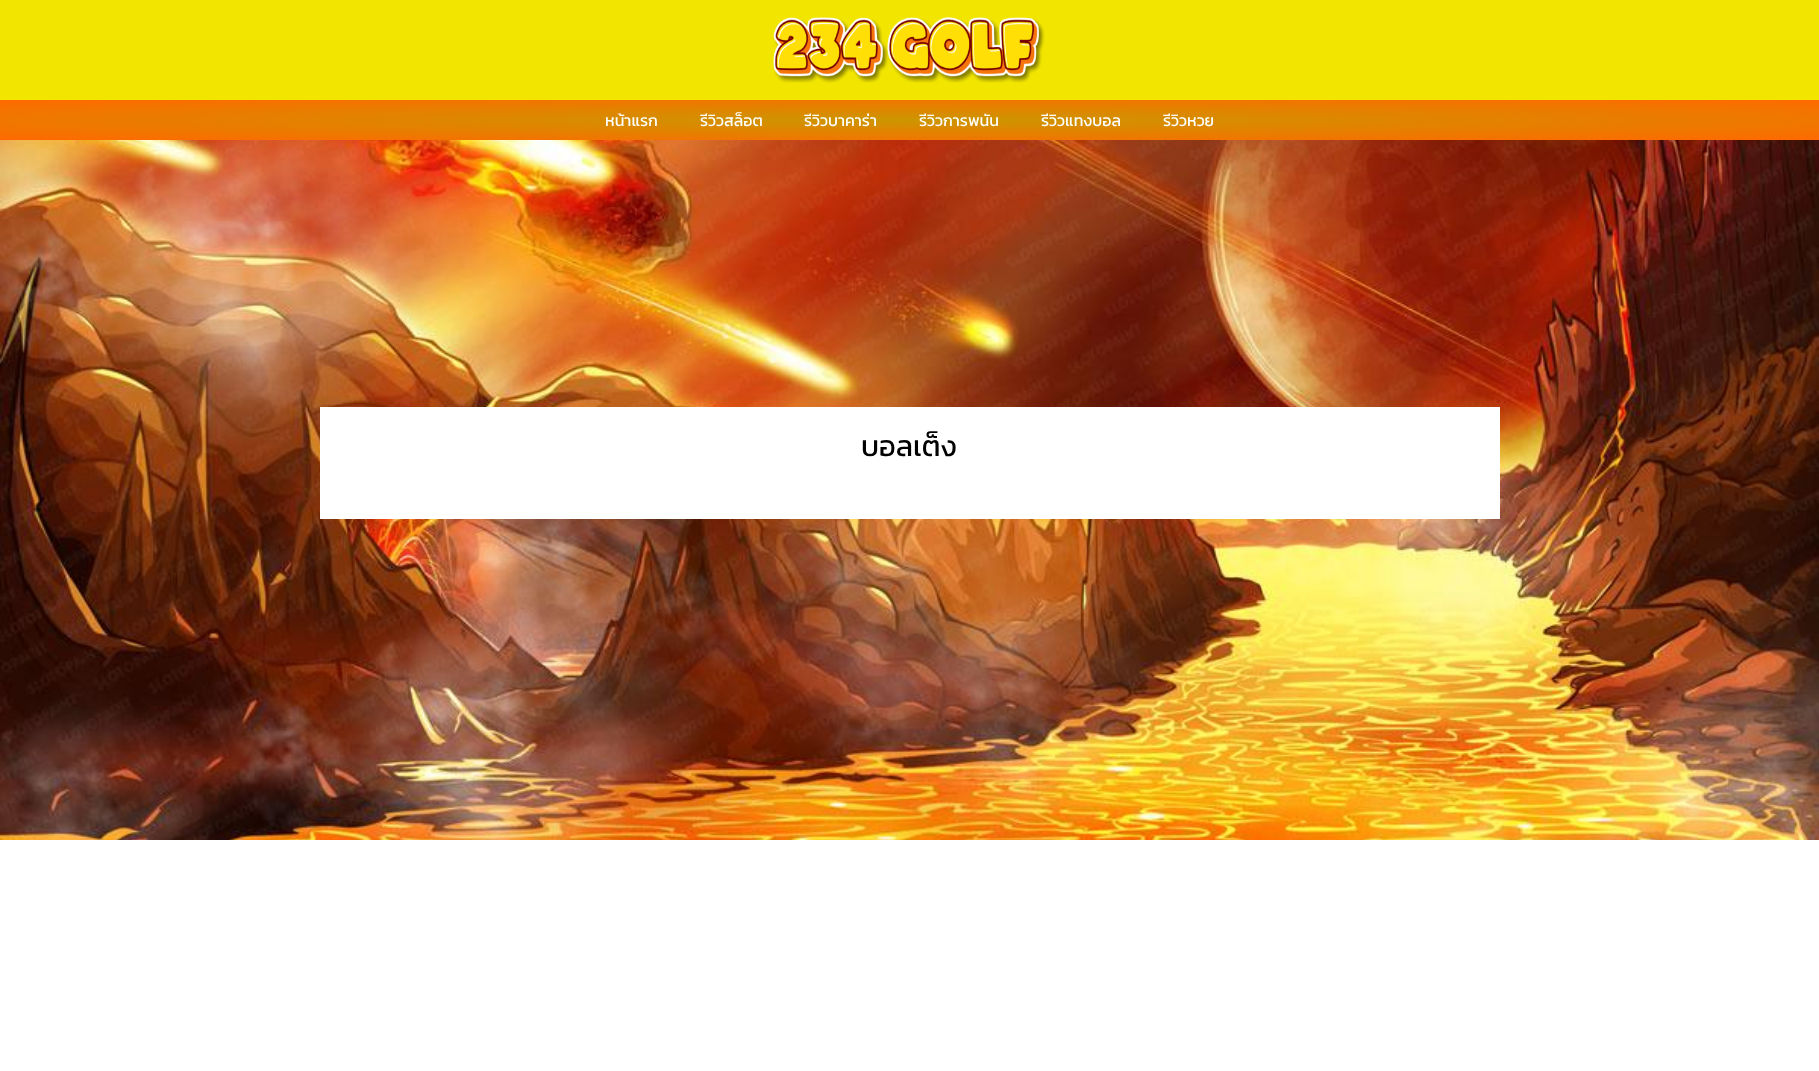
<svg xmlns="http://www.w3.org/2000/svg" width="1819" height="1071">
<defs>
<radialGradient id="g1" gradientUnits="userSpaceOnUse" cx="0" cy="0" r="1" gradientTransform="matrix(1286 0 0 28 910 120)"><stop offset="0" stop-color="#cc9600"/><stop offset="1" stop-color="#ff6900"/></radialGradient>
</defs>
<rect width="100%" height="100%" fill="#fff"/>
<rect width="1819" height="100" fill="#f2e600"/>
<image x="773" y="17" width="272" height="66" href="media/1.png"/>
<rect y="100" width="1819" height="40" fill="url(#g1)"/>
<text x="605" y="126" style="font-family:Kanit;font-size:16px;fill:#fff">หน้าแรก</text>
<text x="700" y="126" style="font-family:Kanit;font-size:16px;fill:#fff">รีวิวสล็อต</text>
<text x="804" y="126" style="font-family:Kanit;font-size:16px;fill:#fff">รีวิวบาคาร่า</text>
<text x="919" y="126" style="font-family:Kanit;font-size:16px;fill:#fff">รีวิวการพนัน</text>
<text x="1041" y="126" style="font-family:Kanit;font-size:16px;fill:#fff">รีวิวแทงบอล</text>
<text x="1163" y="126" style="font-family:Kanit;font-size:16px;fill:#fff">รีวิวหวย</text>
<image x="0" y="140" width="1819" height="700" href="media/2.png"/>
<rect x="320" y="407" width="1180" height="112" fill="#fff"/>
<text x="861" y="456" style="font-family:Kanit;font-size:29px;fill:#000">บอลเต็ง</text>
</svg>
